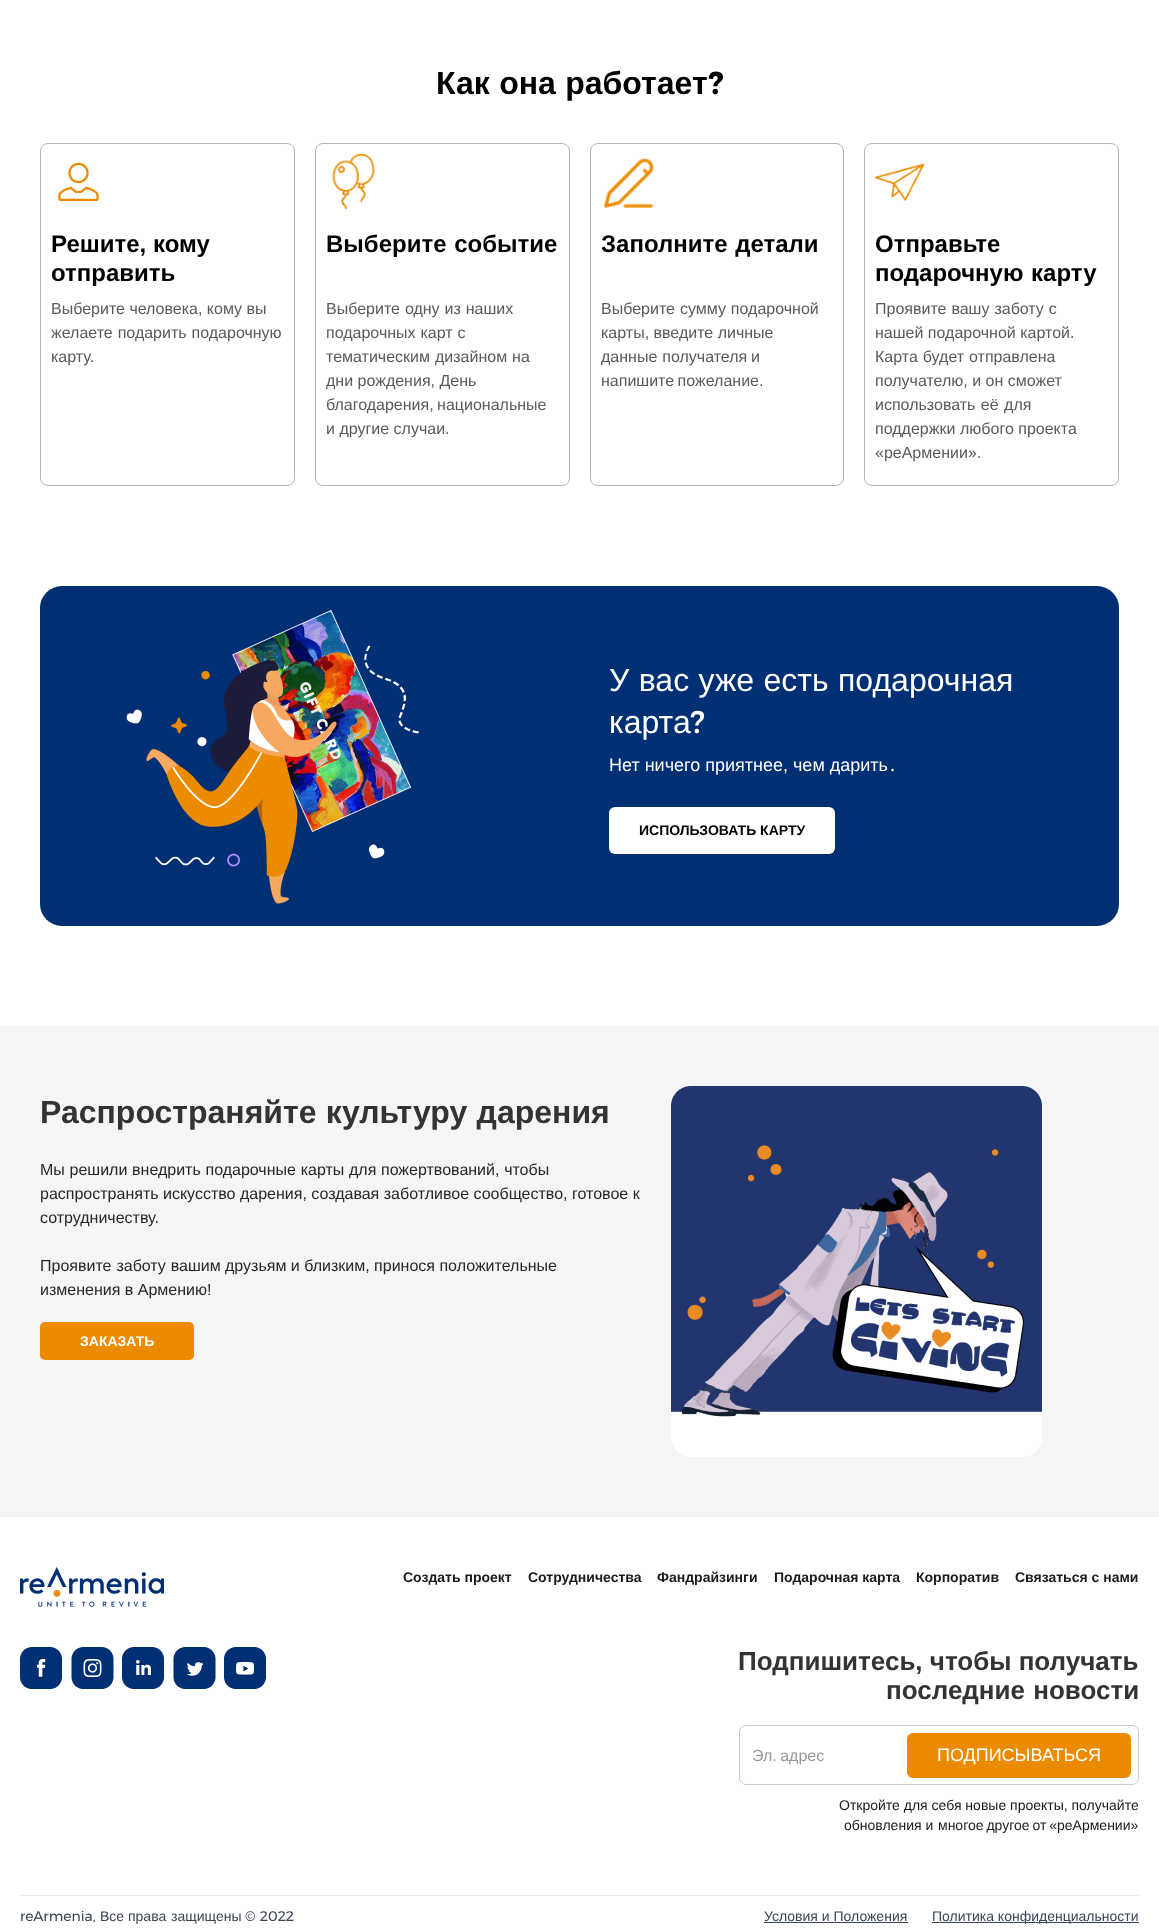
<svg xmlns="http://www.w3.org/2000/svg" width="1159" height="1932">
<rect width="100%" height="100%" fill="#fff"/>
<text x="436" y="94" word-spacing="0.5" style="font-family:Liberation Sans;font-size:32px;font-weight:bold;fill:#000">Как она работает</text>
<text x="708" y="94" style="font-family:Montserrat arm;font-size:32px;font-weight:bold;fill:#000">?</text>
<rect x="40.5" y="143.5" width="254" height="342" rx="7.5" fill="none" stroke="#b6b6b6"/>
<image x="58" y="162" width="41" height="39" href="media/1.png"/>
<text x="51" y="252" style="font-family:Liberation Sans;font-size:24px;font-weight:bold;fill:#000">Решите, кому</text>
<text x="51" y="281" style="font-family:Liberation Sans;font-size:24px;font-weight:bold;fill:#000">отправить</text>
<text x="51" y="314" style="font-family:Liberation Sans;font-size:16px;fill:#5a5a5a">Выберите человека, кому вы</text>
<text x="51" y="338" word-spacing="0.5" style="font-family:Liberation Sans;font-size:16px;fill:#5a5a5a">желаете подарить подарочную</text>
<text x="51" y="362" style="font-family:Liberation Sans;font-size:16px;fill:#5a5a5a">карту.</text>
<rect x="315.5" y="143.5" width="254" height="342" rx="7.5" fill="none" stroke="#b6b6b6"/>
<image x="332" y="154" width="43" height="55" href="media/2.png"/>
<text x="326" y="252" word-spacing="1" style="font-family:Liberation Sans;font-size:24px;font-weight:bold;fill:#000">Выберите событие</text>
<text x="326" y="314" word-spacing="0.5" style="font-family:Liberation Sans;font-size:16px;fill:#5a5a5a">Выберите одну из наших</text>
<text x="326" y="338" word-spacing="0.5" style="font-family:Liberation Sans;font-size:16px;fill:#5a5a5a">подарочных карт с</text>
<text x="326" y="362" word-spacing="0.5" style="font-family:Liberation Sans;font-size:16px;fill:#5a5a5a">тематическим дизайном на</text>
<text x="326" y="386" style="font-family:Liberation Sans;font-size:16px;fill:#5a5a5a">дни рождения, День</text>
<text x="326" y="410" word-spacing="-1" style="font-family:Liberation Sans;font-size:16px;fill:#5a5a5a">благодарения, национальные</text>
<text x="326" y="434" style="font-family:Liberation Sans;font-size:16px;fill:#5a5a5a">и другие случаи.</text>
<rect x="590.5" y="143.5" width="253" height="342" rx="7.5" fill="none" stroke="#b6b6b6"/>
<image x="603" y="157" width="51" height="51" href="media/3.png"/>
<text x="601" y="252" word-spacing="1" style="font-family:Liberation Sans;font-size:24px;font-weight:bold;fill:#000">Заполните детали</text>
<text x="601" y="314" word-spacing="0.5" style="font-family:Liberation Sans;font-size:16px;fill:#5a5a5a">Выберите сумму подарочной</text>
<text x="601" y="338" style="font-family:Liberation Sans;font-size:16px;fill:#5a5a5a">карты, введите личные</text>
<text x="601" y="362" word-spacing="0.5" style="font-family:Liberation Sans;font-size:16px;fill:#5a5a5a">данные получателя</text>
<text x="751" y="362" style="font-family:Liberation Sans;font-size:16px;fill:#5a5a5a">и</text>
<text x="601" y="386" word-spacing="-1" style="font-family:Liberation Sans;font-size:16px;fill:#5a5a5a">напишите пожелание.</text>
<rect x="864.5" y="143.5" width="254" height="342" rx="7.5" fill="none" stroke="#b6b6b6"/>
<image x="875" y="163" width="50" height="38" href="media/4.png"/>
<text x="875" y="252" style="font-family:Liberation Sans;font-size:24px;font-weight:bold;fill:#000">Отправьте</text>
<text x="875" y="281" word-spacing="1" style="font-family:Liberation Sans;font-size:24px;font-weight:bold;fill:#000">подарочную карту</text>
<text x="875" y="314" word-spacing="0.5" style="font-family:Liberation Sans;font-size:16px;fill:#5a5a5a">Проявите вашу заботу с</text>
<text x="875" y="338" style="font-family:Liberation Sans;font-size:16px;fill:#5a5a5a">нашей подарочной картой.</text>
<text x="875" y="362" word-spacing="0.5" style="font-family:Liberation Sans;font-size:16px;fill:#5a5a5a">Карта будет</text>
<text x="969" y="362" style="font-family:Liberation Sans;font-size:16px;fill:#5a5a5a">отправлена</text>
<text x="875" y="386" style="font-family:Liberation Sans;font-size:16px;fill:#5a5a5a">получателю, и он сможет</text>
<text x="875" y="410" word-spacing="1" style="font-family:Liberation Sans;font-size:16px;fill:#5a5a5a">использовать eё для</text>
<text x="875" y="434" style="font-family:Liberation Sans;font-size:16px;fill:#5a5a5a">поддержки</text>
<text x="960" y="434" style="font-family:Liberation Sans;font-size:16px;fill:#5a5a5a">любого проекта</text>
<text x="875" y="458" style="font-family:Liberation Sans;font-size:16px;fill:#5a5a5a">«реАрмении».</text>
<rect x="40" y="586" width="1079" height="340" rx="22" fill="#012f73"/>
<image x="126" y="610" width="293" height="294" href="media/5.png"/>
<text x="609" y="691" word-spacing="0.5" style="font-family:Liberation Sans;font-size:32px;fill:#fff">У вас уже есть подарочная</text>
<text x="609" y="733" style="font-family:Liberation Sans;font-size:32px;fill:#fff">карта</text>
<text x="690" y="733" style="font-family:Montserrat arm;font-size:32px;font-weight:500;fill:#fff">?</text>
<text x="609" y="771" style="font-family:Liberation Sans;font-size:18px;fill:#fff">Нет ничего приятнее, чем дарить</text>
<text x="888" y="771" style="font-family:Noto Sans;font-size:18px;fill:#fff">․</text>
<rect x="609" y="807" width="226" height="47" rx="6" fill="#fff"/>
<text x="639" y="835" style="font-family:Liberation Sans;font-size:14px;font-weight:bold;fill:#000">ИСПОЛЬЗОВАТЬ КАРТУ</text>
<rect y="1026" width="1159" height="491" fill="#f5f4f7"/>
<text x="40" y="1123" word-spacing="0.5" style="font-family:Liberation Sans;font-size:32px;font-weight:bold;fill:#333">Распространяйте культуру дарения</text>
<text x="40" y="1175" word-spacing="0.25" style="font-family:Liberation Sans;font-size:16px;fill:#272727">Мы решили внедрить подарочные карты для пожертвований, чтобы</text>
<text x="40" y="1199" style="font-family:Liberation Sans;font-size:16px;fill:#272727">распространять искусство дарения, создавая заботливое сообщество,</text>
<text x="572" y="1199" style="font-family:Liberation Sans;font-size:16px;fill:#272727">готовое к</text>
<text x="40" y="1223" style="font-family:Liberation Sans;font-size:16px;fill:#272727">сотрудничеству.</text>
<text x="40" y="1271" word-spacing="0.5" style="font-family:Liberation Sans;font-size:16px;fill:#272727">Проявите заботу вашим</text>
<text x="225" y="1271" style="font-family:Liberation Sans;font-size:16px;fill:#272727">друзьям и близким, принося положительные</text>
<text x="40" y="1295" style="font-family:Liberation Sans;font-size:16px;fill:#272727">изменения в Армению!</text>
<rect x="40" y="1322" width="154" height="38" rx="5" fill="#ed8b00"/>
<text x="80" y="1346" style="font-family:Liberation Sans;font-size:14px;font-weight:bold;fill:#fff">ЗАКАЗАТЬ</text>
<image x="671" y="1086" width="371" height="371" href="media/6.png"/>
<image x="20" y="1567" width="144" height="40" href="media/7.png"/>
<image x="20" y="1647" width="42" height="42" href="media/8.png"/>
<image x="71" y="1647" width="43" height="42" href="media/9.png"/>
<image x="122" y="1647" width="42" height="42" href="media/10.png"/>
<image x="173" y="1647" width="43" height="42" href="media/11.png"/>
<image x="224" y="1647" width="42" height="42" href="media/12.png"/>
<text x="403" y="1582" style="font-family:Liberation Sans;font-size:14px;font-weight:bold;fill:#1a1a1a">Создать проект</text>
<text x="528" y="1582" style="font-family:Liberation Sans;font-size:14px;font-weight:bold;fill:#1a1a1a">Сотрудничества</text>
<text x="657" y="1582" style="font-family:Liberation Sans;font-size:14px;font-weight:bold;fill:#1a1a1a">Фандрайзинги</text>
<text x="774" y="1582" style="font-family:Liberation Sans;font-size:14px;font-weight:bold;fill:#1a1a1a">Подарочная карта</text>
<text x="916" y="1582" style="font-family:Liberation Sans;font-size:14px;font-weight:bold;fill:#1a1a1a">Корпоратив</text>
<text x="1015" y="1582" style="font-family:Liberation Sans;font-size:14px;font-weight:bold;fill:#1a1a1a">Связаться с нами</text>
<text x="738" y="1670" style="font-family:Liberation Sans;font-size:26px;font-weight:bold;fill:#333">Подпишитесь, чтобы получать</text>
<text x="886" y="1699" word-spacing="1" style="font-family:Liberation Sans;font-size:26px;font-weight:bold;fill:#333">последние новости</text>
<rect x="739.5" y="1725.5" width="399" height="59" rx="6.5" fill="none" stroke="#ccc"/>
<text x="752" y="1761" word-spacing="-1" style="font-family:Liberation Sans;font-size:16px;fill:#999">Эл. адрес</text>
<rect x="907" y="1733" width="224" height="45" rx="6" fill="#ed8b00"/>
<text x="937" y="1761" style="font-family:Liberation Sans;font-size:18px;fill:#fff">ПОДПИСЫВАТЬСЯ</text>
<text x="839" y="1810" style="font-family:Liberation Sans;font-size:14px;fill:#1a1a1a">Откройте для себя новые проекты, получайте</text>
<text x="844" y="1830" style="font-family:Liberation Sans;font-size:14px;fill:#1a1a1a">обновления и</text>
<text x="938" y="1830" word-spacing="-1" style="font-family:Liberation Sans;font-size:14px;fill:#1a1a1a">многое другое от «реАрмении»</text>
<rect x="20" y="1895" width="1119" height="1" fill="#e4ebf3"/>
<text x="20" y="1921" style="font-family:Montserrat arm;font-size:14px;fill:#3a4554">reArmenia,</text>
<text x="100" y="1921" style="font-family:Liberation Sans;font-size:14px;fill:#3a4554">Все</text>
<text x="128" y="1921" style="font-family:Liberation Sans;font-size:14px;fill:#3a4554">права</text>
<text x="171" y="1921" style="font-family:Liberation Sans;font-size:14px;fill:#3a4554">защищены</text>
<text x="245" y="1921" style="font-family:Montserrat arm;font-size:14px;fill:#3a4554">© 2022</text>
<text x="764" y="1921" style="font-family:Liberation Sans;font-size:14px;fill:#3a4554">Условия и Положения</text>
<rect x="764" y="1922" width="144" height="1" fill="#3a4554"/>
<rect x="932" y="1922" width="207" height="1" fill="#3a4554"/>
<text x="932" y="1921" style="font-family:Liberation Sans;font-size:14px;fill:#3a4554">Политика конфиденциальности</text>
</svg>
